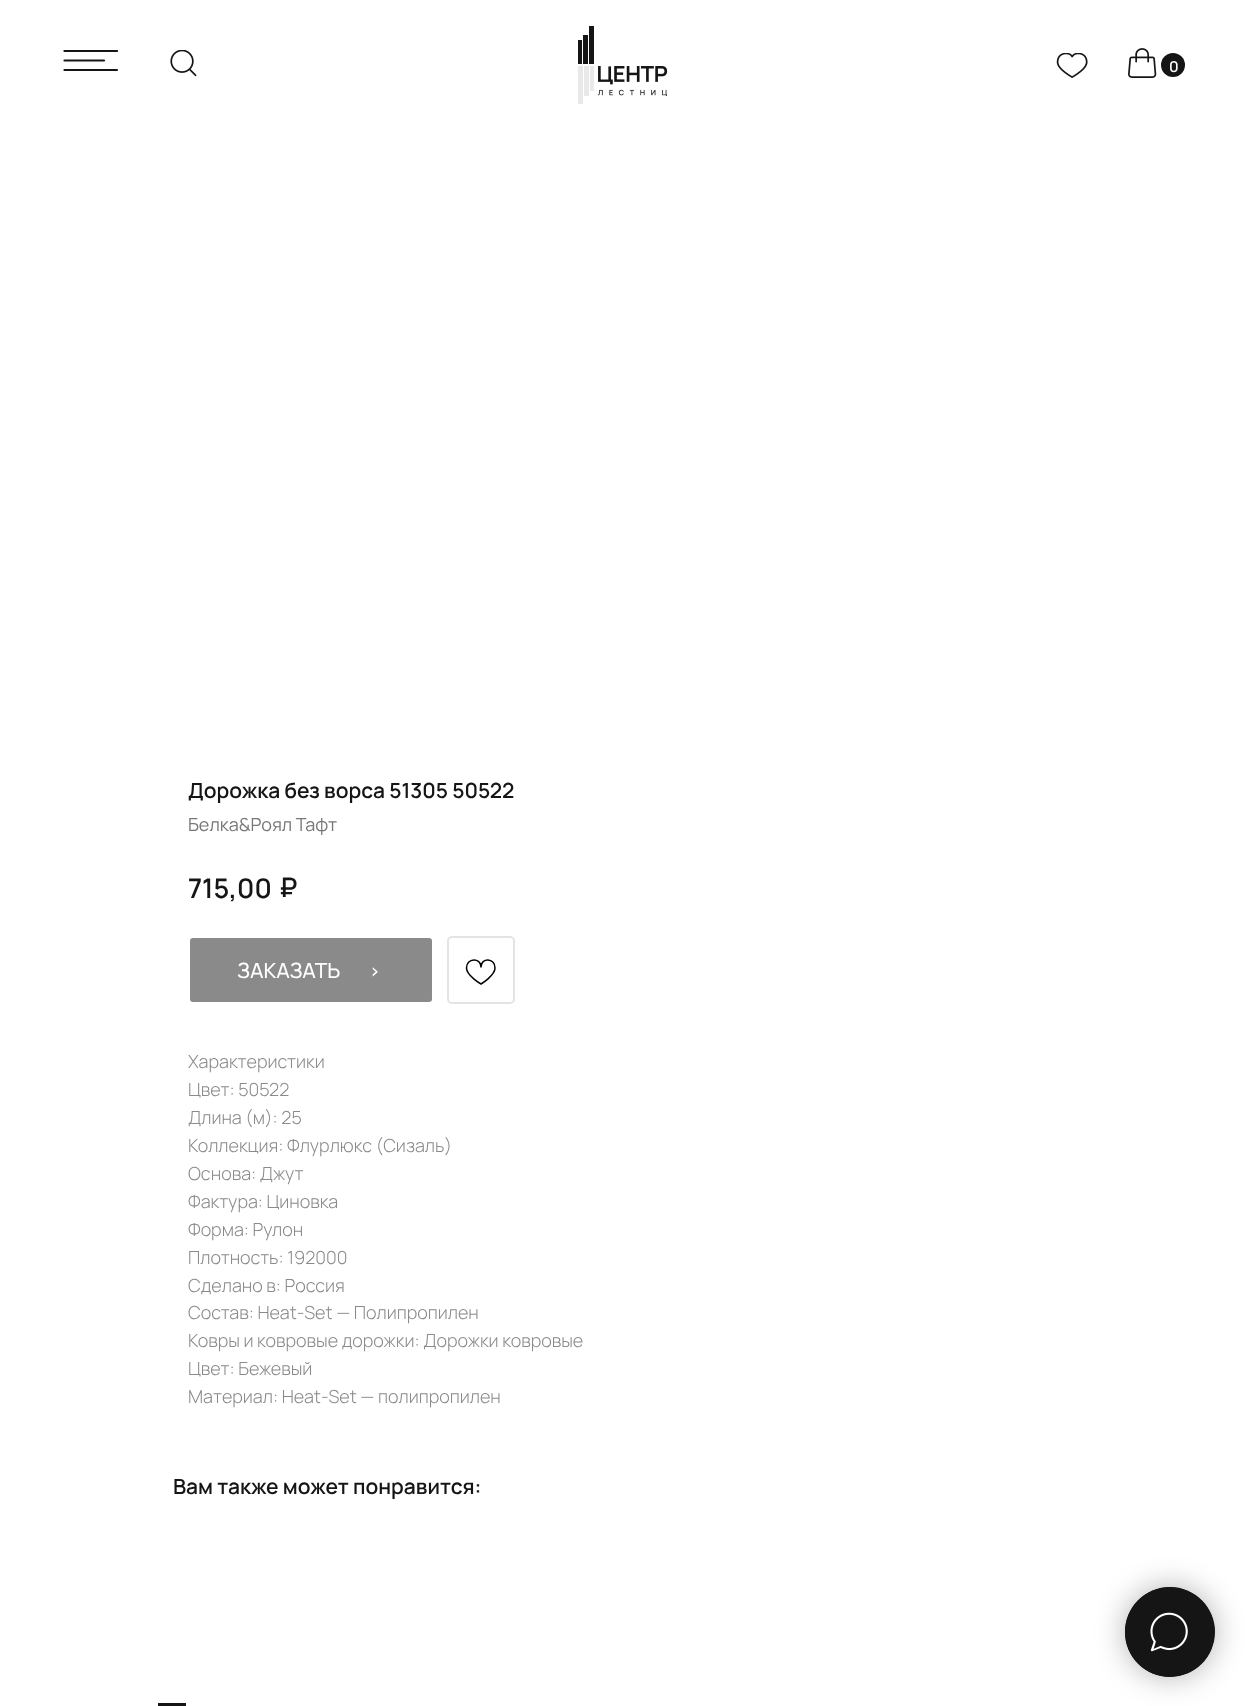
<svg xmlns="http://www.w3.org/2000/svg" width="1245" height="1706">
<defs>
<clipPath id="clip1"><rect x="63" y="50" width="56" height="22"/></clipPath>
</defs>
<rect width="100%" height="100%" fill="#fff"/>
<g clip-path="url(#clip1)">
<path d="M64.5 51h52.5" fill="none" stroke="#151515" stroke-width="2.2" stroke-linecap="round"/>
</g>
<path d="M64.5 60.5h39.5m-39.5 9.5h52.5" fill="none" stroke="#151515" stroke-width="2.2" stroke-linecap="round"/>
<image x="170" y="50" width="27" height="27" href="media/1.png"/>
<image x="578" y="26" width="90" height="78" href="media/2.png"/>
<image x="1056" y="53" width="32" height="25" href="media/3.png"/>
<image x="1128" y="48" width="29" height="30" href="media/4.png"/>
<circle cx="1173" cy="65" r="12" fill="#151515"/>
<text x="1169" y="72" style="font-family:Manrope;font-size:15px;font-weight:600;fill:#fff">0</text>
<rect x="1125" y="1587" width="90" height="90" rx="45" fill="#0000004d" filter="blur(15px)"/>
<circle cx="1170" cy="1632" r="45" fill="#151515"/>
<image x="1125" y="1587" width="90" height="90" href="media/5.png"/>
<text x="188" y="798" style="font-family:Manrope;font-size:21px;font-weight:600;fill:#151515">Дорожка без ворса 51305 50522</text>
<text x="188" y="831" style="font-family:Manrope;font-size:18px;fill:#777">Белка&amp;Роял Тафт</text>
<text x="188" y="898" style="font-family:Manrope;font-size:27px;font-weight:600;fill:#151515">715,00</text>
<text x="279" y="897" style="font-family:Manrope;font-size:27px;font-weight:600;fill:#151515">₽</text>
<rect x="189" y="937" width="244" height="66" rx="4" fill="#8a8a8a" stroke="#fff" stroke-width="2"/>
<text x="237" y="978" style="font-family:Manrope;font-size:21px;font-weight:500;fill:#fff">ЗАКАЗАТЬ</text>
<text x="340" y="978" style="font-family:DejaVu Sans;font-size:21px;fill:#fff">⠀⠀›</text>
<rect x="448" y="937" width="66" height="66" rx="4" fill="none" stroke="#e4e4e4" stroke-width="2"/>
<path d="M495 968c0 7.5-14 16-14 16c0 0-14.5-8.5-14.5-16c0-10.5 14.5-10.5 14.5-1c0-9.5 14-9.5 14 1z" fill="none" stroke="#000" stroke-width="1.5" stroke-linejoin="round"/>
<text x="188" y="1068" style="font-family:Manrope;font-size:18px;font-weight:300;fill:#8a8a8a">Характеристики</text>
<text x="188" y="1096" style="font-family:Manrope;font-size:18px;font-weight:300;fill:#8a8a8a">Цвет: 50522</text>
<text x="188" y="1124" style="font-family:Manrope;font-size:18px;font-weight:300;fill:#8a8a8a">Длина (м): 25</text>
<text x="188" y="1152" style="font-family:Manrope;font-size:18px;font-weight:300;fill:#8a8a8a">Коллекция: Флурлюкс (Сизаль)</text>
<text x="188" y="1180" style="font-family:Manrope;font-size:18px;font-weight:300;fill:#8a8a8a">Основа: Джут</text>
<text x="188" y="1208" style="font-family:Manrope;font-size:18px;font-weight:300;fill:#8a8a8a">Фактура: Циновка</text>
<text x="188" y="1236" style="font-family:Manrope;font-size:18px;font-weight:300;fill:#8a8a8a">Форма: Рулон</text>
<text x="188" y="1264" style="font-family:Manrope;font-size:18px;font-weight:300;fill:#8a8a8a">Плотность: 192000</text>
<text x="188" y="1292" style="font-family:Manrope;font-size:18px;font-weight:300;fill:#8a8a8a">Сделано в: Россия</text>
<text x="188" y="1319" style="font-family:Manrope;font-size:18px;font-weight:300;fill:#8a8a8a">Состав: Heat-Set — Полипропилен</text>
<text x="188" y="1347" style="font-family:Manrope;font-size:18px;font-weight:300;fill:#8a8a8a">Ковры и ковровые дорожки: Дорожки ковровые</text>
<text x="188" y="1375" style="font-family:Manrope;font-size:18px;font-weight:300;fill:#8a8a8a">Цвет: Бежевый</text>
<text x="188" y="1403" style="font-family:Manrope;font-size:18px;font-weight:300;fill:#8a8a8a">Материал: Heat-Set — полипропилен</text>
<text x="173" y="1494" style="font-family:Manrope;font-size:21px;font-weight:600;fill:#151515">Вам также может понравится:</text>
<rect x="158" y="1703" width="28" height="3" fill="#151515"/>
</svg>
